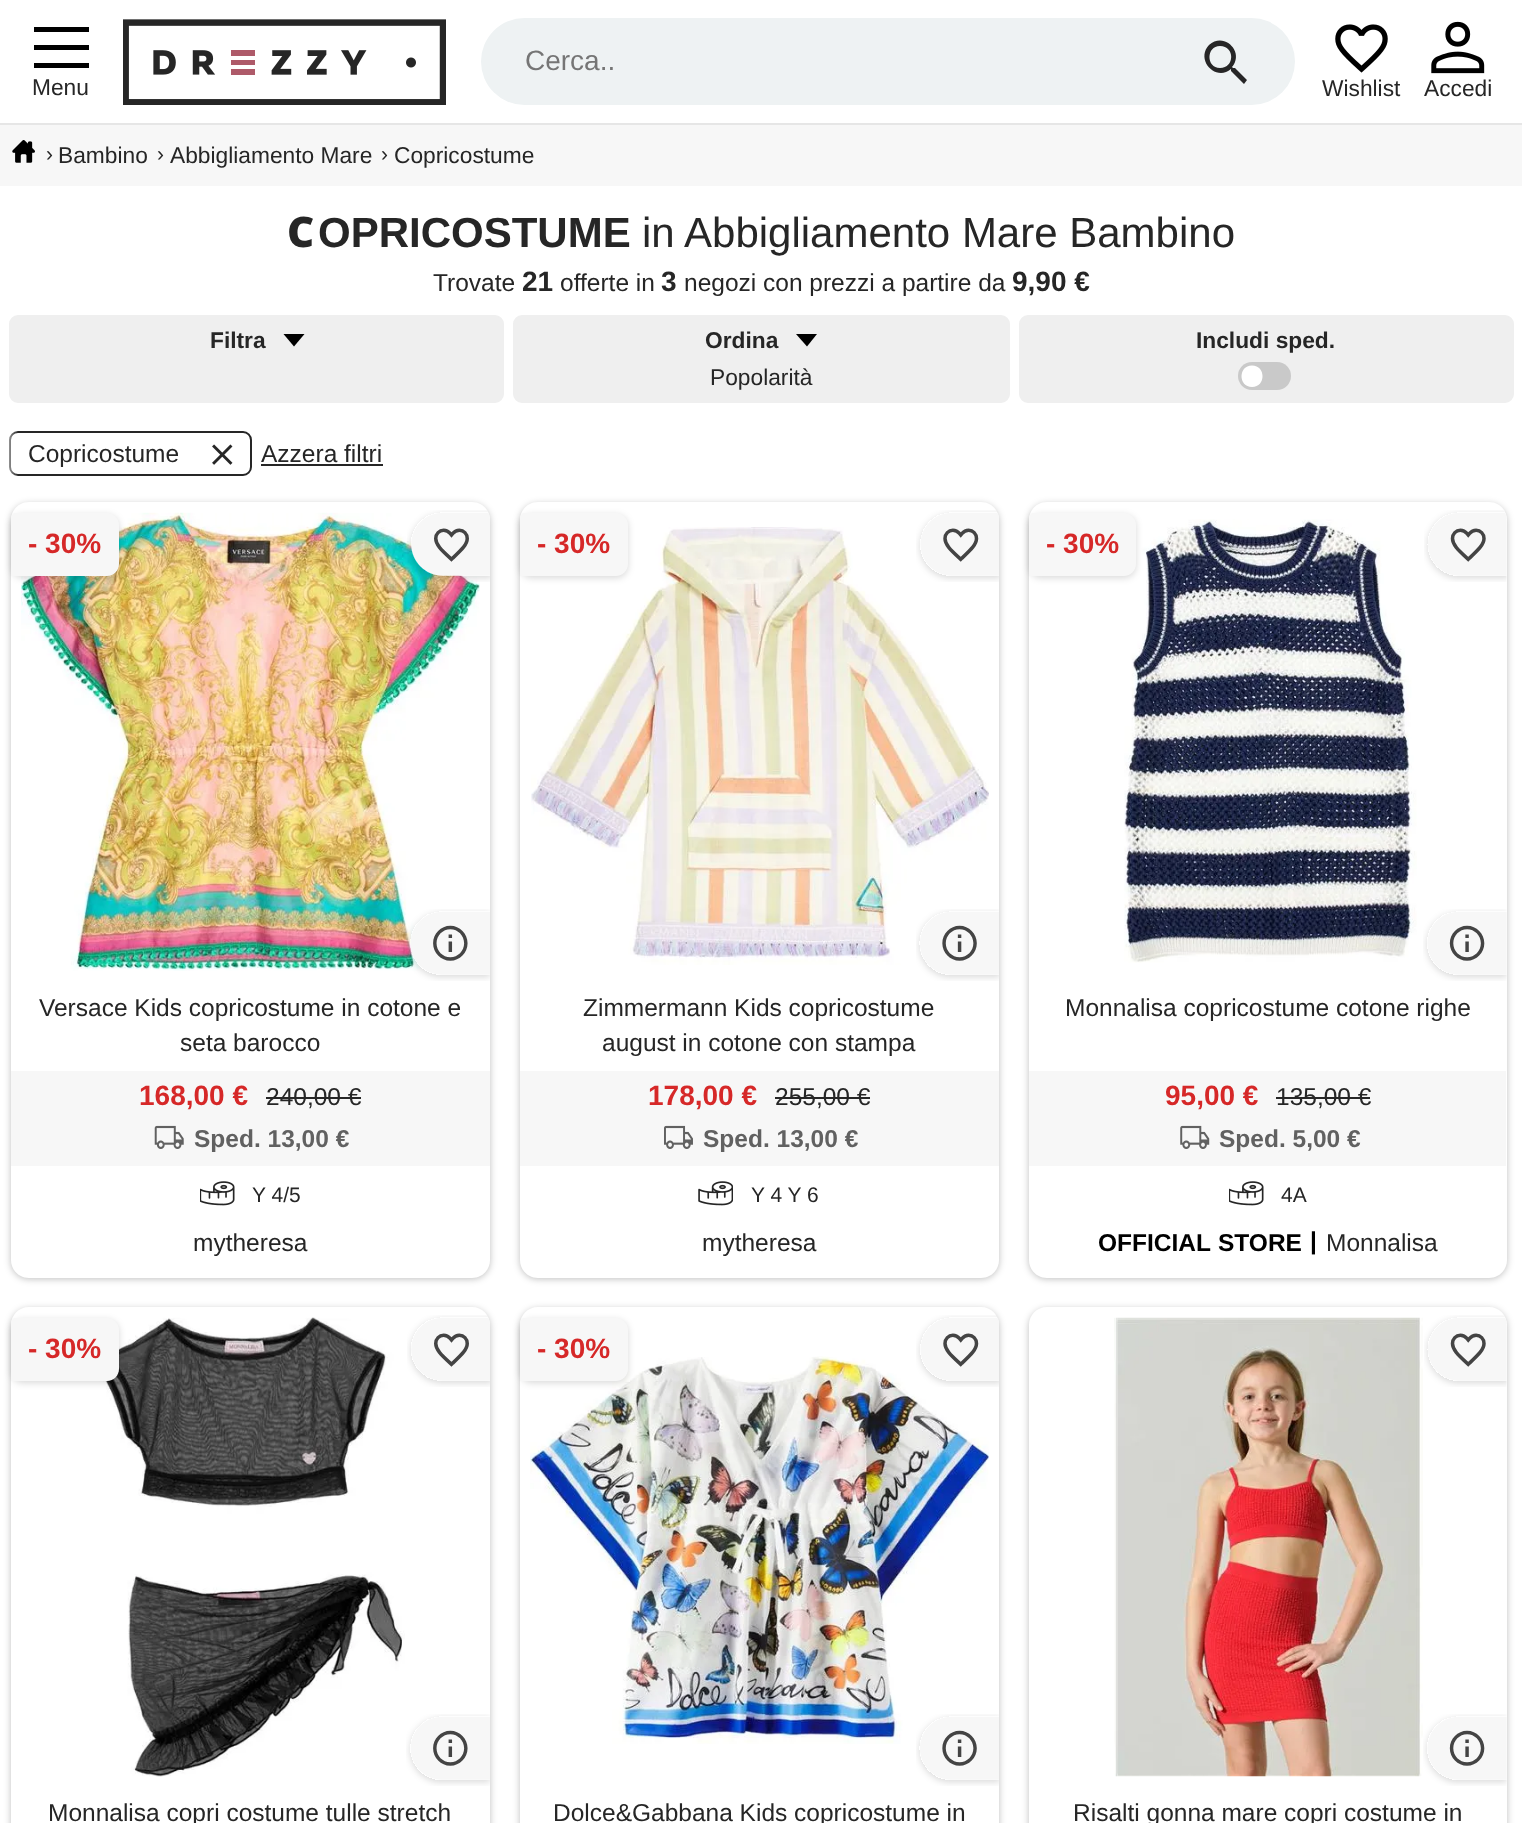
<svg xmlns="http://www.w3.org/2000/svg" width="1522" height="1823">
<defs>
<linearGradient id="g1" gradientUnits="userSpaceOnUse" x1="18" y1="445" x2="0" y2="445"><stop offset="0" stop-color="#fff" stop-opacity="0"/><stop offset="1" stop-color="#fff"/></linearGradient>
<clipPath id="clip1"><path d="M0 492h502v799h-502zm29 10h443c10 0 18 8 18 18v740c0 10-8 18-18 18h-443c-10 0-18-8-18-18v-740c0-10 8-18 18-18z" clip-rule="evenodd"/></clipPath>
<clipPath id="clip2"><path d="M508 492h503v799h-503zm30 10h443c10 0 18 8 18 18v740c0 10-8 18-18 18h-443c-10 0-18-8-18-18v-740c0-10 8-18 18-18z" clip-rule="evenodd"/></clipPath>
<clipPath id="clip3"><path d="M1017 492h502v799h-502zm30 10h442c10 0 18 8 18 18v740c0 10-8 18-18 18h-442c-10 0-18-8-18-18v-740c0-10 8-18 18-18z" clip-rule="evenodd"/></clipPath>
<clipPath id="clip4"><path d="M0 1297h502v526h-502zm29 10h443c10 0 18 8 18 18v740c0 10-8 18-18 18h-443c-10 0-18-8-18-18v-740c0-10 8-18 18-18z" clip-rule="evenodd"/></clipPath>
<clipPath id="clip5"><path d="M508 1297h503v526h-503zm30 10h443c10 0 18 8 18 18v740c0 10-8 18-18 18h-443c-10 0-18-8-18-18v-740c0-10 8-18 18-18z" clip-rule="evenodd"/></clipPath>
<clipPath id="clip6"><path d="M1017 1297h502v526h-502zm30 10h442c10 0 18 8 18 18v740c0 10-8 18-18 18h-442c-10 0-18-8-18-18v-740c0-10 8-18 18-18z" clip-rule="evenodd"/></clipPath>
</defs>
<rect width="100%" height="100%" fill="#fff"/>
<rect y="123" width="1522" height="2" fill="#e6e6e6"/>
<image x="123" y="19" width="323" height="86" href="media/1.png"/>
<rect x="481" y="18" width="814" height="87" rx="43.5" fill="#eef2f3"/>
<text x="525" y="70" style="font-family:Liberation Sans;font-size:28px;fill:#757575">Cerca..</text>
<path d="M1235 68h-2l-1-1c13-15-8-36-23-22c-14 15 7 37 22 24v2l13 13l3-4zm-15 0c-14 0-14-22 0-22c15 0 15 22 0 22z" fill="#262626"/>
<rect x="34" y="27" width="55" height="5" fill="#000"/>
<rect x="34" y="45" width="55" height="5" fill="#000"/>
<rect x="34" y="63" width="55" height="5" fill="#000"/>
<text x="32" y="95" style="font-family:Liberation Sans;font-size:22.75px;fill:#262626">Menu</text>
<image x="1335" y="24" width="53" height="49" href="media/2.png"/>
<text x="1322" y="96" style="font-family:Liberation Sans;font-size:22.75px;fill:#262626">Wishlist</text>
<image x="1431" y="21" width="54" height="53" href="media/3.png"/>
<text x="1424" y="96" style="font-family:Liberation Sans;font-size:22.75px;fill:#262626">Accedi</text>
<rect y="125" width="1522" height="61" fill="#f7f7f7"/>
<image x="12" y="140" width="23" height="23" href="media/4.png"/>
<text x="46" y="161" style="font-family:Liberation Sans;font-size:21px;fill:#262626">›</text>
<text x="58" y="163" style="font-family:Liberation Sans;font-size:22.75px;fill:#262626">Bambino</text>
<text x="157" y="161" style="font-family:Liberation Sans;font-size:21px;fill:#262626">›</text>
<text x="170" y="163" style="font-family:Liberation Sans;font-size:22.75px;fill:#262626">Abbigliamento Mare</text>
<text x="381" y="161" style="font-family:Liberation Sans;font-size:21px;fill:#262626">›</text>
<text x="394" y="163" style="font-family:Liberation Sans;font-size:22.75px;fill:#262626">Copricostume</text>
<text x="287" y="247" style="font-family:Noto Sans;font-size:42px;font-weight:900;fill:#262626">C</text>
<text x="318" y="247" style="font-family:Liberation Sans;font-size:42px;font-weight:bold;fill:#262626">OPRICOSTUME</text>
<text x="642" y="247" style="font-family:Liberation Sans;font-size:42px;fill:#262626">in Abbigliamento Mare Bambino</text>
<text x="433" y="291" style="font-family:Liberation Sans;font-size:24.5px;fill:#262626">Trovate</text>
<text x="522" y="291" style="font-family:Liberation Sans;font-size:28px;font-weight:bold;fill:#262626">21</text>
<text x="560" y="291" style="font-family:Liberation Sans;font-size:24.5px;fill:#262626">offerte in</text>
<text x="661" y="291" style="font-family:Liberation Sans;font-size:28px;font-weight:bold;fill:#262626">3</text>
<text x="684" y="291" style="font-family:Liberation Sans;font-size:24.5px;fill:#262626">negozi con prezzi a partire da</text>
<text x="1012" y="291" style="font-family:Liberation Sans;font-size:28px;font-weight:bold;fill:#262626">9,90 €</text>
<rect x="10" y="316" width="493" height="86" rx="8" fill="#efefef" stroke="#efefef" stroke-width="2"/>
<text x="210" y="348" style="font-family:Liberation Sans;font-size:22.75px;font-weight:bold;fill:#262626">Filtra</text>
<path d="M283.5 334h21l-10.5 12.5z" fill="#000"/>
<rect x="514" y="316" width="495" height="86" rx="8" fill="#efefef" stroke="#efefef" stroke-width="2"/>
<text x="705" y="348" style="font-family:Liberation Sans;font-size:22.75px;font-weight:bold;fill:#262626">Ordina</text>
<path d="M796 334h21l-10 12.5z" fill="#000"/>
<text x="710" y="385" style="font-family:Liberation Sans;font-size:22.75px;fill:#262626">Popolarità</text>
<rect x="1020" y="316" width="493" height="86" rx="8" fill="#efefef" stroke="#efefef" stroke-width="2"/>
<text x="1196" y="348" style="font-family:Liberation Sans;font-size:22.75px;font-weight:bold;fill:#262626">Includi sped.</text>
<rect x="1238" y="362" width="53" height="28" rx="14" fill="#c9c9c9"/>
<path d="M1252 387c14 0 14-21.5 0-21.5c-14 0-14 21.5 0 21.5z" fill="#fff" fill-rule="evenodd"/>
<rect x="10" y="432" width="241" height="43" rx="8" fill="none" stroke="#262626" stroke-width="2"/>
<rect x="9" y="431" width="9" height="45" fill="url(#g1)"/>
<text x="28" y="462" style="font-family:Liberation Sans;font-size:24.5px;fill:#262626">Copricostume</text>
<image x="212" y="444" width="21" height="21" href="media/5.png"/>
<text x="261" y="462" style="font-family:Liberation Sans;font-size:24.5px;fill:#262626">Azzera filtri</text>
<rect x="261" y="464" width="122" height="2" fill="#262626"/>
<g clip-path="url(#clip1)">
<rect x="11" y="504" width="479" height="775" rx="18" fill="#00000040" filter="blur(3.5px)"/>
</g>
<image x="21" y="512" width="459" height="459" href="media/7.png"/>
<image x="407" y="510" width="83" height="72" href="media/6.png"/>
<image x="406" y="909" width="84" height="72" href="media/8.png"/>
<rect x="11" y="515" width="108" height="63" rx="12" fill="#00000026" filter="blur(3.5px)"/>
<path d="M16 513h91c6.5 0 12 5.5 12 12v39c0 6.5-5.5 12-12 12h-96v-58c0-3 2-5 5-5z" fill="#f7f7f7"/>
<text x="28" y="553" style="font-family:Liberation Sans;font-size:28px;font-weight:bold;fill:#d62828">- 30%</text>
<text x="39" y="1016" style="font-family:Liberation Sans;font-size:24.5px;fill:#262626">Versace Kids copricostume in cotone e</text>
<text x="180" y="1051" style="font-family:Liberation Sans;font-size:24.5px;fill:#262626">seta barocco</text>
<rect x="11" y="1071" width="479" height="95" fill="#f7f7f7"/>
<text x="139" y="1105" style="font-family:Liberation Sans;font-size:28px;font-weight:bold;fill:#d62828">168,00 €</text>
<text x="266" y="1105" style="font-family:Liberation Sans;font-size:24.5px;fill:#262626">240,00 €</text>
<rect x="266" y="1097" width="95" height="2" fill="#262626"/>
<image x="154" y="1125" width="30" height="24" href="media/9.png"/>
<text x="194" y="1147" style="font-family:Liberation Sans;font-size:24.5px;font-weight:bold;fill:#616161">Sped. 13,00 €</text>
<image x="200" y="1181" width="35" height="25" href="media/10.png"/>
<text x="252" y="1202" style="font-family:Liberation Sans;font-size:21px;fill:#262626">Y 4/5</text>
<text x="193" y="1251" style="font-family:Liberation Sans;font-size:24.5px;fill:#262626">mytheresa</text>
<g clip-path="url(#clip2)">
<rect x="520" y="504" width="479" height="775" rx="18" fill="#00000040" filter="blur(3.5px)"/>
</g>
<image x="531" y="527" width="458" height="438" href="media/12.png"/>
<image x="916" y="510" width="83" height="72" href="media/11.png"/>
<image x="916" y="909" width="83" height="72" href="media/13.png"/>
<rect x="520" y="515" width="108" height="63" rx="12" fill="#00000026" filter="blur(3.5px)"/>
<path d="M525 513h91c6.5 0 12 5.5 12 12v39c0 6.5-5.5 12-12 12h-96v-58c0-3 2-5 5-5z" fill="#f7f7f7"/>
<text x="537" y="553" style="font-family:Liberation Sans;font-size:28px;font-weight:bold;fill:#d62828">- 30%</text>
<text x="583" y="1016" style="font-family:Liberation Sans;font-size:24.5px;fill:#262626">Zimmermann Kids copricostume</text>
<text x="602" y="1051" style="font-family:Liberation Sans;font-size:24.5px;fill:#262626">august in cotone con stampa</text>
<rect x="520" y="1071" width="479" height="95" fill="#f7f7f7"/>
<text x="648" y="1105" style="font-family:Liberation Sans;font-size:28px;font-weight:bold;fill:#d62828">178,00 €</text>
<text x="775" y="1105" style="font-family:Liberation Sans;font-size:24.5px;fill:#262626">255,00 €</text>
<rect x="775" y="1097" width="95" height="2" fill="#262626"/>
<image x="664" y="1125" width="29" height="24" href="media/14.png"/>
<text x="703" y="1147" style="font-family:Liberation Sans;font-size:24.5px;font-weight:bold;fill:#616161">Sped. 13,00 €</text>
<image x="698" y="1181" width="35" height="25" href="media/15.png"/>
<text x="751" y="1202" style="font-family:Liberation Sans;font-size:21px;fill:#262626">Y 4 Y 6</text>
<text x="702" y="1251" style="font-family:Liberation Sans;font-size:24.5px;fill:#262626">mytheresa</text>
<g clip-path="url(#clip3)">
<rect x="1029" y="504" width="478" height="775" rx="18" fill="#00000040" filter="blur(3.5px)"/>
</g>
<image x="1124" y="519" width="293" height="444" href="media/16.png"/>
<rect x="1029" y="515" width="107" height="63" rx="12" fill="#00000026" filter="blur(3.5px)"/>
<path d="M1034 513h90c6.5 0 12 5.5 12 12v39c0 6.5-5.5 12-12 12h-95v-58c0-3 2-5 5-5z" fill="#f7f7f7"/>
<text x="1046" y="553" style="font-family:Liberation Sans;font-size:28px;font-weight:bold;fill:#d62828">- 30%</text>
<image x="1424" y="510" width="83" height="72" href="media/17.png"/>
<image x="1423" y="909" width="84" height="72" href="media/18.png"/>
<text x="1065" y="1016" style="font-family:Liberation Sans;font-size:24.5px;fill:#262626">Monnalisa copricostume cotone righe</text>
<rect x="1029" y="1071" width="477" height="95" fill="#f7f7f7"/>
<text x="1165" y="1105" style="font-family:Liberation Sans;font-size:28px;font-weight:bold;fill:#d62828">95,00 €</text>
<text x="1276" y="1105" style="font-family:Liberation Sans;font-size:24.5px;fill:#262626">135,00 €</text>
<rect x="1276" y="1097" width="94" height="2" fill="#262626"/>
<image x="1180" y="1125" width="30" height="24" href="media/19.png"/>
<text x="1219" y="1147" style="font-family:Liberation Sans;font-size:24.5px;font-weight:bold;fill:#616161">Sped. 5,00 €</text>
<image x="1229" y="1181" width="35" height="25" href="media/10.png"/>
<text x="1281" y="1202" style="font-family:Liberation Sans;font-size:21px;fill:#262626">4A</text>
<text x="1098" y="1251" style="font-family:Liberation Sans;font-size:24.5px;font-weight:bold;fill:#000">OFFICIAL</text>
<text x="1218" y="1251" style="font-family:Liberation Sans;font-size:24.5px;font-weight:bold;fill:#000">STORE</text>
<text x="1310" y="1249" style="font-family:Liberation Sans;font-size:24.5px;font-weight:bold;fill:#000">|</text>
<text x="1326" y="1251" style="font-family:Liberation Sans;font-size:24.5px;fill:#262626">Monnalisa</text>
<g clip-path="url(#clip4)">
<rect x="11" y="1309" width="479" height="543" rx="18" fill="#00000040" filter="blur(3.5px)"/>
</g>
<image x="93" y="1317" width="312" height="460" href="media/20.png"/>
<rect x="11" y="1320" width="108" height="63" rx="12" fill="#00000026" filter="blur(3.5px)"/>
<path d="M16 1318h91c6.5 0 12 5.5 12 12v39c0 6.5-5.5 12-12 12h-96v-58c0-3 2-5 5-5z" fill="#f7f7f7"/>
<text x="28" y="1358" style="font-family:Liberation Sans;font-size:28px;font-weight:bold;fill:#d62828">- 30%</text>
<image x="407" y="1315" width="83" height="72" href="media/21.png"/>
<image x="406" y="1714" width="84" height="72" href="media/22.png"/>
<text x="48" y="1821" style="font-family:Liberation Sans;font-size:24.5px;fill:#262626">Monnalisa copri costume tulle stretch</text>
<g clip-path="url(#clip5)">
<rect x="520" y="1309" width="479" height="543" rx="18" fill="#00000040" filter="blur(3.5px)"/>
</g>
<image x="530" y="1356" width="459" height="388" href="media/24.png"/>
<image x="916" y="1315" width="83" height="72" href="media/23.png"/>
<image x="916" y="1714" width="83" height="72" href="media/25.png"/>
<rect x="520" y="1320" width="108" height="63" rx="12" fill="#00000026" filter="blur(3.5px)"/>
<path d="M525 1318h91c6.5 0 12 5.5 12 12v39c0 6.5-5.5 12-12 12h-96v-58c0-3 2-5 5-5z" fill="#f7f7f7"/>
<text x="537" y="1358" style="font-family:Liberation Sans;font-size:28px;font-weight:bold;fill:#d62828">- 30%</text>
<text x="553" y="1821" style="font-family:Liberation Sans;font-size:24.5px;fill:#262626">Dolce&amp;Gabbana Kids copricostume in</text>
<g clip-path="url(#clip6)">
<rect x="1029" y="1309" width="478" height="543" rx="18" fill="#00000040" filter="blur(3.5px)"/>
</g>
<image x="1114" y="1317" width="309" height="460" href="media/26.png"/>
<image x="1424" y="1315" width="83" height="72" href="media/27.png"/>
<image x="1423" y="1714" width="84" height="72" href="media/28.png"/>
<text x="1073" y="1821" style="font-family:Liberation Sans;font-size:24.5px;fill:#262626">Risalti gonna mare copri costume in</text>
</svg>
